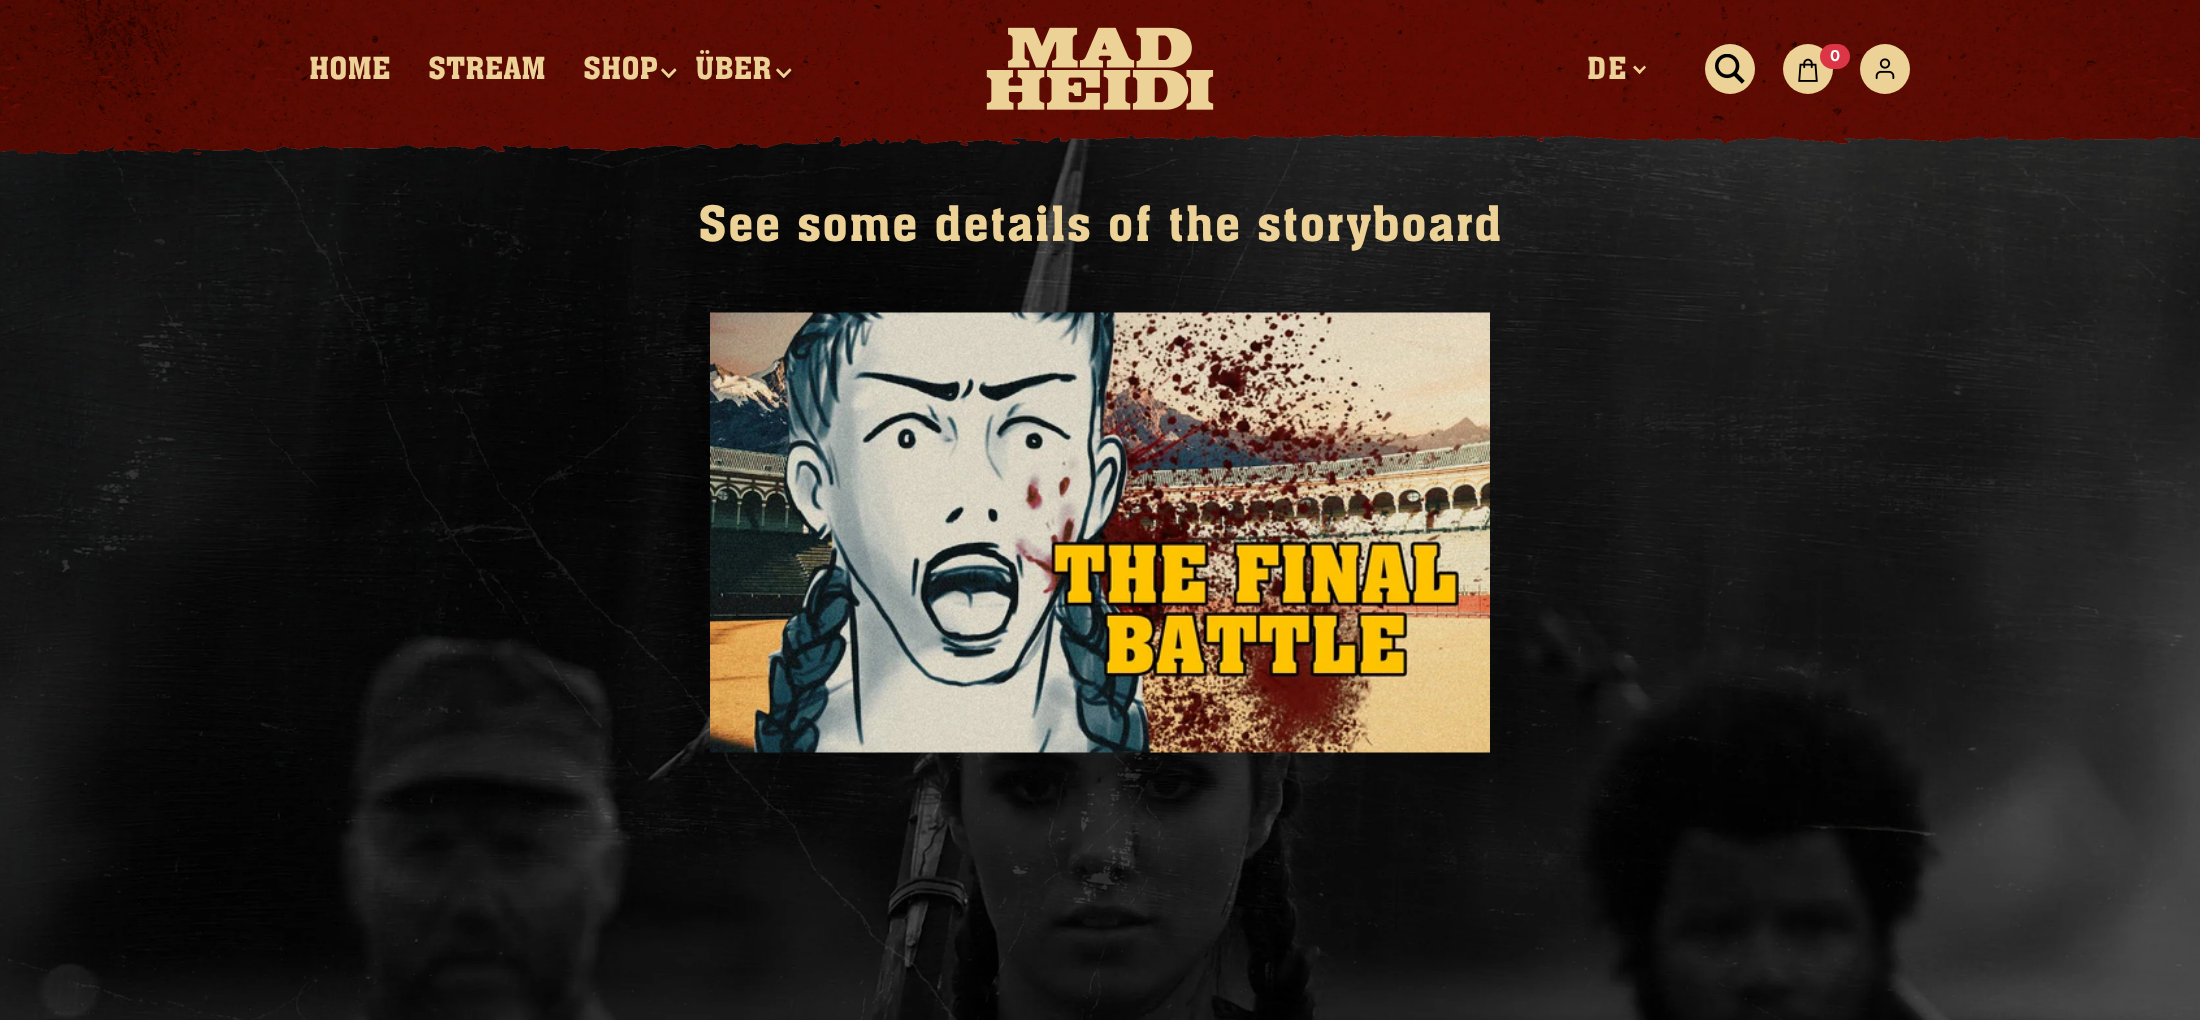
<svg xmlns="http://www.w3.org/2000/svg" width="2200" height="1020">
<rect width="100%" height="100%" fill="#fff"/>
<image x="0" y="121" width="2200" height="899" href="media/1.png"/>
<image x="0" y="0" width="2200" height="155" href="media/2.png"/>
<text x="309" y="79" style="font-family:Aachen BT;font-size:30px;fill:#edd297">HOME</text>
<text x="428" y="79" style="font-family:Aachen BT;font-size:30px;fill:#edd297">STREAM</text>
<text x="583" y="79" style="font-family:Aachen BT;font-size:30px;fill:#edd297">SHOP</text>
<image x="658" y="68" width="22" height="16" href="media/3.png"/>
<text x="695" y="79" style="font-family:Aachen BT;font-size:30px;fill:#edd297">ÜBER</text>
<image x="773" y="68" width="22" height="16" href="media/4.png"/>
<image x="986" y="27" width="228" height="83" href="media/5.png"/>
<text x="1587" y="79" style="font-family:Aachen BT;font-size:30px;letter-spacing:2px;fill:#edd297">DE</text>
<path d="M1644.5 65.5l1.5 2l-6.5 6.5l-1.5-2z" fill="#edd297"/>
<path d="M1635 65.5l6.5 6.5l-2 2l-6.5-6.5z" fill="#edd297"/>
<circle cx="1730" cy="69" r="25" fill="#edd297"/>
<image x="1715" y="54" width="30" height="30" href="media/6.png"/>
<circle cx="1808" cy="69" r="25" fill="#edd297"/>
<rect x="1820" y="44" width="30" height="25" rx="12.5" fill="#dc3545"/>
<text x="1830" y="61" style="font-family:Inter;font-size:15px;font-weight:bold;fill:#fff">0</text>
<image x="1798" y="58" width="20" height="24" href="media/7.png"/>
<circle cx="1885" cy="69" r="25" fill="#edd297"/>
<image x="1875" y="58" width="20" height="22" href="media/8.png"/>
<text x="698" y="241" style="font-family:Aachen BT;font-size:48px;letter-spacing:1.2px;fill:#edd297">See some details of the storyboard</text>
<image x="710" y="312" width="780" height="441" href="media/9.png"/>
</svg>
